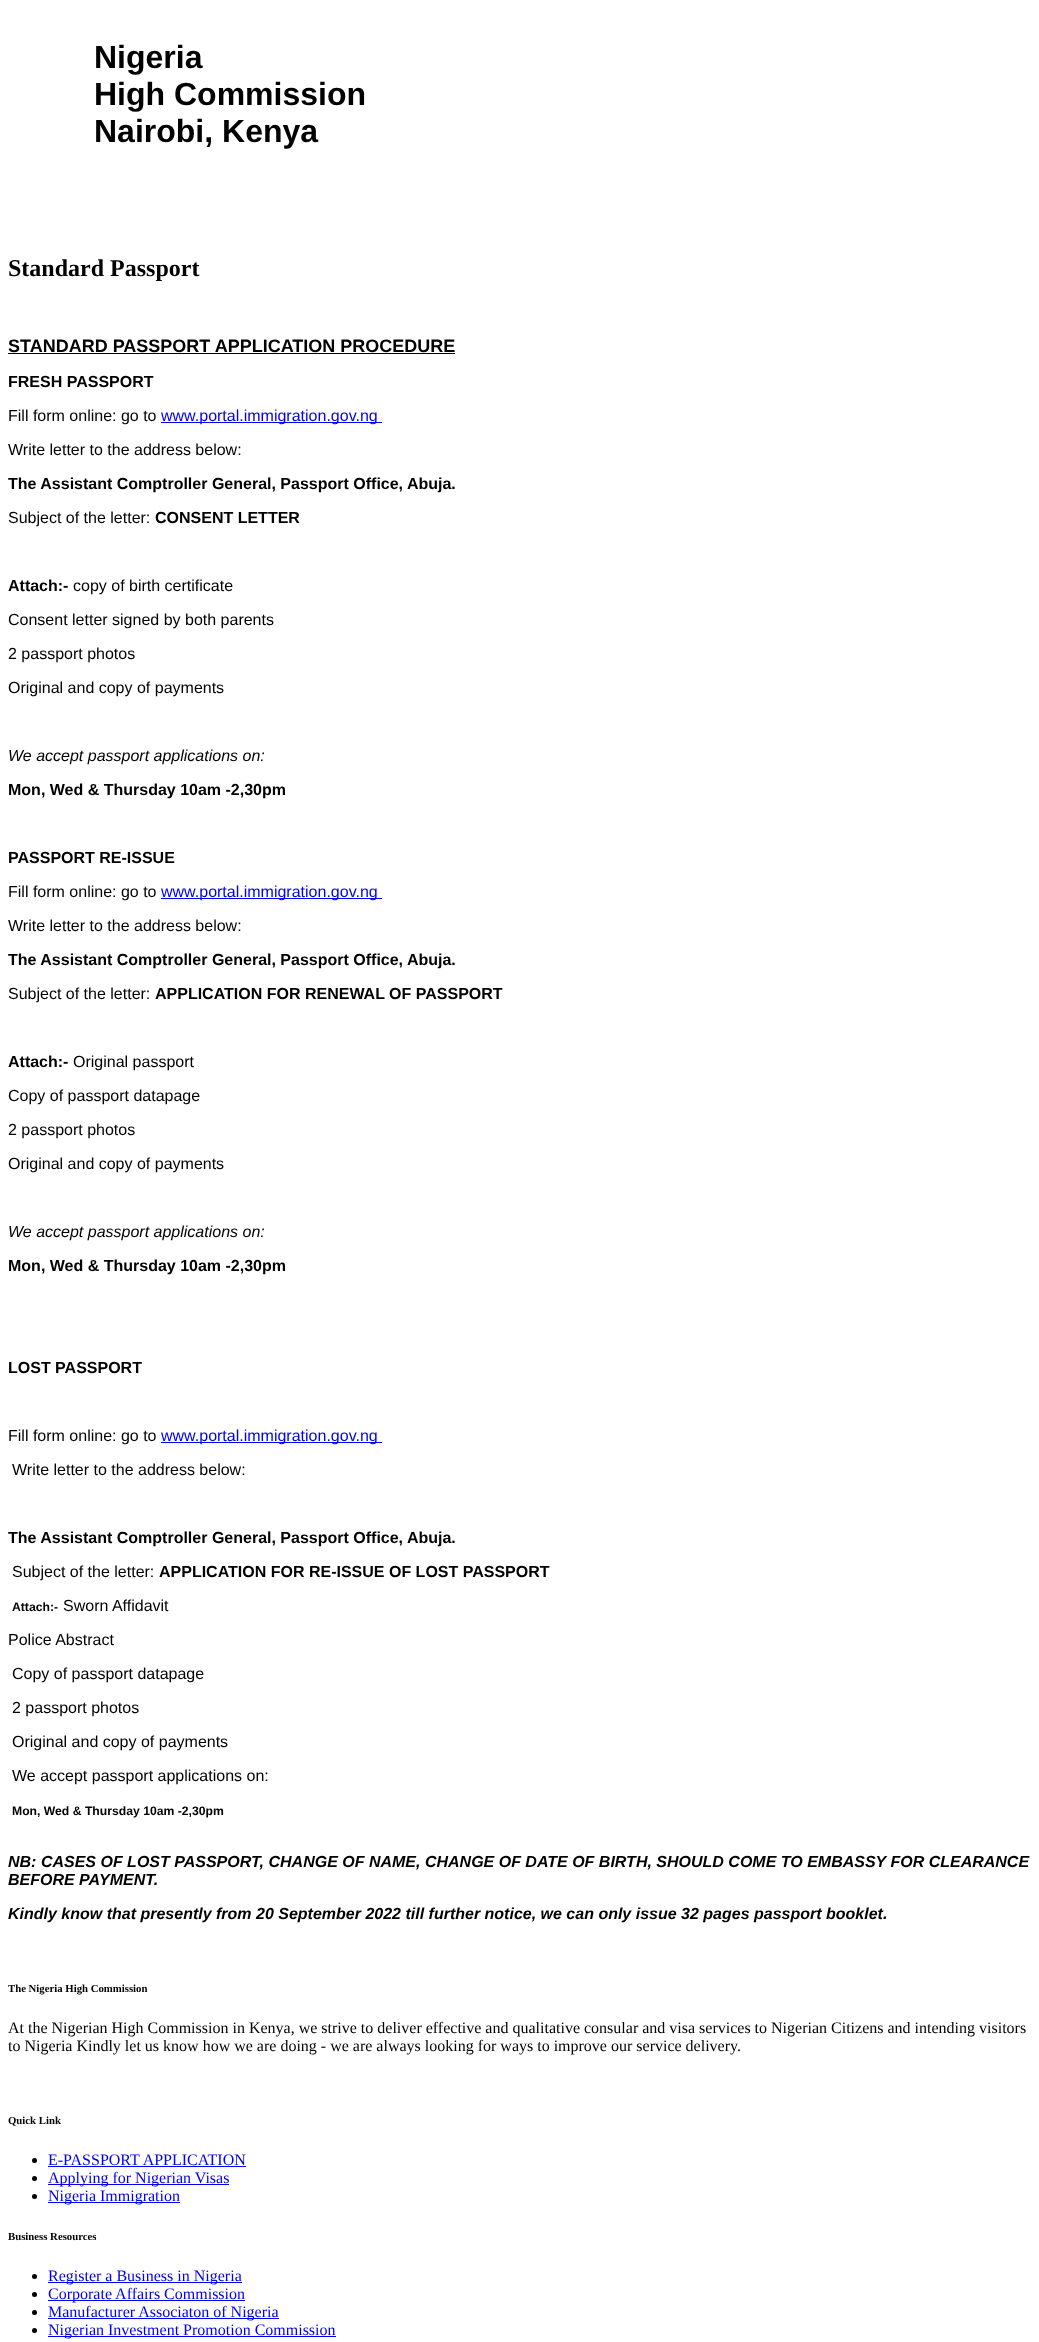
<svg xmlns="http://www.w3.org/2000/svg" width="1039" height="2342">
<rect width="100%" height="100%" fill="#fff"/>
<text x="94" y="68" style="font-family:Liberation Sans;font-size:32px;font-weight:bold;fill:#000">Nigeria</text>
<text x="94" y="105" style="font-family:Liberation Sans;font-size:32px;font-weight:bold;fill:#000">High Commission</text>
<text x="94" y="142" style="font-family:Liberation Sans;font-size:32px;font-weight:bold;fill:#000">Nairobi, Kenya</text>
<text x="8" y="276" style="font-family:Liberation Serif;font-size:24px;font-weight:bold;fill:#000">Standard Passport</text>
<text x="8" y="352" style="font-family:Liberation Sans;font-size:18px;font-weight:bold;fill:#000">STANDARD PASSPORT APPLICATION PROCEDURE</text>
<rect x="8" y="353" width="447" height="1" fill="#000"/>
<text x="8" y="387" style="font-family:Liberation Sans;font-size:16px;font-weight:bold;fill:#000">FRESH PASSPORT</text>
<text x="8" y="421" style="font-family:Liberation Sans;font-size:16px;fill:#000">Fill form online: go to</text>
<rect x="161" y="422" width="221" height="1" fill="#00e"/>
<text x="161" y="421" style="font-family:Liberation Sans;font-size:16px;fill:#00e">www.portal.immigration.gov.ng</text>
<text x="8" y="455" style="font-family:Liberation Sans;font-size:16px;fill:#000">Write letter to the address below:</text>
<text x="8" y="489" style="font-family:Liberation Sans;font-size:16px;font-weight:bold;fill:#000">The Assistant Comptroller General, Passport Office, Abuja.</text>
<text x="8" y="523" style="font-family:Liberation Sans;font-size:16px;fill:#000">Subject of the letter:</text>
<text x="155" y="523" style="font-family:Liberation Sans;font-size:16px;font-weight:bold;fill:#000">CONSENT LETTER</text>
<text x="8" y="591" style="font-family:Liberation Sans;font-size:16px;font-weight:bold;fill:#000">Attach:-</text>
<text x="73" y="591" style="font-family:Liberation Sans;font-size:16px;fill:#000">copy of birth certificate</text>
<text x="8" y="625" style="font-family:Liberation Sans;font-size:16px;fill:#000">Consent letter signed by both parents</text>
<text x="8" y="659" style="font-family:Liberation Sans;font-size:16px;fill:#000">2 passport photos</text>
<text x="8" y="693" style="font-family:Liberation Sans;font-size:16px;fill:#000">Original and copy of payments</text>
<text x="8" y="761" style="font-family:Liberation Sans;font-size:16px;font-style:italic;fill:#000">We accept passport applications on:</text>
<text x="8" y="795" style="font-family:Liberation Sans;font-size:16px;font-weight:bold;fill:#000">Mon, Wed &amp; Thursday 10am -2,30pm</text>
<text x="8" y="863" style="font-family:Liberation Sans;font-size:16px;font-weight:bold;fill:#000">PASSPORT RE-ISSUE</text>
<text x="8" y="897" style="font-family:Liberation Sans;font-size:16px;fill:#000">Fill form online: go to</text>
<rect x="161" y="898" width="221" height="1" fill="#00e"/>
<text x="161" y="897" style="font-family:Liberation Sans;font-size:16px;fill:#00e">www.portal.immigration.gov.ng</text>
<text x="8" y="931" style="font-family:Liberation Sans;font-size:16px;fill:#000">Write letter to the address below:</text>
<text x="8" y="965" style="font-family:Liberation Sans;font-size:16px;font-weight:bold;fill:#000">The Assistant Comptroller General, Passport Office, Abuja.</text>
<text x="8" y="999" style="font-family:Liberation Sans;font-size:16px;fill:#000">Subject of the letter:</text>
<text x="155" y="999" style="font-family:Liberation Sans;font-size:16px;font-weight:bold;fill:#000">APPLICATION FOR RENEWAL OF PASSPORT</text>
<text x="8" y="1067" style="font-family:Liberation Sans;font-size:16px;font-weight:bold;fill:#000">Attach:-</text>
<text x="73" y="1067" style="font-family:Liberation Sans;font-size:16px;fill:#000">Original passport</text>
<text x="8" y="1101" style="font-family:Liberation Sans;font-size:16px;fill:#000">Copy of passport datapage</text>
<text x="8" y="1135" style="font-family:Liberation Sans;font-size:16px;fill:#000">2 passport photos</text>
<text x="8" y="1169" style="font-family:Liberation Sans;font-size:16px;fill:#000">Original and copy of payments</text>
<text x="8" y="1237" style="font-family:Liberation Sans;font-size:16px;font-style:italic;fill:#000">We accept passport applications on:</text>
<text x="8" y="1271" style="font-family:Liberation Sans;font-size:16px;font-weight:bold;fill:#000">Mon, Wed &amp; Thursday 10am -2,30pm</text>
<text x="8" y="1373" style="font-family:Liberation Sans;font-size:16px;font-weight:bold;fill:#000">LOST PASSPORT</text>
<text x="8" y="1441" style="font-family:Liberation Sans;font-size:16px;fill:#000">Fill form online: go to</text>
<rect x="161" y="1442" width="221" height="1" fill="#00e"/>
<text x="161" y="1441" style="font-family:Liberation Sans;font-size:16px;fill:#00e">www.portal.immigration.gov.ng</text>
<text x="12" y="1475" style="font-family:Liberation Sans;font-size:16px;fill:#000">Write letter to the address below:</text>
<text x="8" y="1543" style="font-family:Liberation Sans;font-size:16px;font-weight:bold;fill:#000">The Assistant Comptroller General, Passport Office, Abuja.</text>
<text x="12" y="1577" style="font-family:Liberation Sans;font-size:16px;fill:#000">Subject of the letter:</text>
<text x="159" y="1577" style="font-family:Liberation Sans;font-size:16px;font-weight:bold;fill:#000">APPLICATION FOR RE-ISSUE OF LOST PASSPORT</text>
<text x="12" y="1611" style="font-family:Liberation Sans;font-size:12.2px;font-weight:bold;fill:#000">Attach:-</text>
<text x="63" y="1611" style="font-family:Liberation Sans;font-size:16px;fill:#000">Sworn Affidavit</text>
<text x="8" y="1645" style="font-family:Liberation Sans;font-size:16px;fill:#000">Police Abstract</text>
<text x="12" y="1679" style="font-family:Liberation Sans;font-size:16px;fill:#000">Copy of passport datapage</text>
<text x="12" y="1713" style="font-family:Liberation Sans;font-size:16px;fill:#000">2 passport photos</text>
<text x="12" y="1747" style="font-family:Liberation Sans;font-size:16px;fill:#000">Original and copy of payments</text>
<text x="12" y="1781" style="font-family:Liberation Sans;font-size:16px;fill:#000">We accept passport applications on:</text>
<text x="12" y="1815" style="font-family:Liberation Sans;font-size:12.2px;font-weight:bold;fill:#000">Mon, Wed &amp; Thursday 10am -2,30pm</text>
<text x="8" y="1867" style="font-family:Liberation Sans;font-size:16px;font-weight:bold;font-style:italic;fill:#000">NB: CASES OF LOST PASSPORT, CHANGE OF NAME, CHANGE OF DATE OF BIRTH, SHOULD COME TO EMBASSY FOR CLEARANCE</text>
<text x="8" y="1885" style="font-family:Liberation Sans;font-size:16px;font-weight:bold;font-style:italic;fill:#000">BEFORE PAYMENT.</text>
<text x="8" y="1919" style="font-family:Liberation Sans;font-size:16px;font-weight:bold;font-style:italic;fill:#000">Kindly know that presently from 20 September 2022 till further notice, we can only issue 32 pages passport booklet.</text>
<text x="8" y="1992" style="font-family:Liberation Serif;font-size:10.75px;font-weight:bold;fill:#000">The Nigeria High Commission</text>
<text x="8" y="2033" style="font-family:Liberation Serif;font-size:16px;fill:#000">At the Nigerian High Commission in Kenya, we strive to deliver effective and qualitative consular and visa services to Nigerian Citizens and intending visitors</text>
<text x="8" y="2051" style="font-family:Liberation Serif;font-size:16px;fill:#000">to Nigeria Kindly let us know how we are doing - we are always looking for ways to improve our service delivery.</text>
<text x="8" y="2124" style="font-family:Liberation Serif;font-size:10.75px;font-weight:bold;fill:#000">Quick Link</text>
<circle cx="34.5" cy="2160.5" r="2.5" fill="#000"/>
<text x="48" y="2165" style="font-family:Liberation Serif;font-size:16px;fill:#00e">E-PASSPORT APPLICATION</text>
<rect x="48" y="2166" width="198" height="1" fill="#00e"/>
<circle cx="34.5" cy="2178.5" r="2.5" fill="#000"/>
<rect x="48" y="2184" width="181" height="1" fill="#00e"/>
<text x="48" y="2183" style="font-family:Liberation Serif;font-size:16px;fill:#00e">Applying for Nigerian Visas</text>
<circle cx="34.5" cy="2196.5" r="2.5" fill="#000"/>
<rect x="48" y="2202" width="132" height="1" fill="#00e"/>
<text x="48" y="2201" style="font-family:Liberation Serif;font-size:16px;fill:#00e">Nigeria Immigration</text>
<text x="8" y="2240" style="font-family:Liberation Serif;font-size:10.75px;font-weight:bold;fill:#000">Business Resources</text>
<circle cx="34.5" cy="2276.5" r="2.5" fill="#000"/>
<rect x="48" y="2282" width="194" height="1" fill="#00e"/>
<text x="48" y="2281" style="font-family:Liberation Serif;font-size:16px;fill:#00e">Register a Business in Nigeria</text>
<circle cx="34.5" cy="2294.5" r="2.5" fill="#000"/>
<rect x="48" y="2300" width="197" height="1" fill="#00e"/>
<text x="48" y="2299" style="font-family:Liberation Serif;font-size:16px;fill:#00e">Corporate Affairs Commission</text>
<circle cx="34.5" cy="2312.5" r="2.5" fill="#000"/>
<rect x="48" y="2318" width="231" height="1" fill="#00e"/>
<text x="48" y="2317" style="font-family:Liberation Serif;font-size:16px;fill:#00e">Manufacturer Associaton of Nigeria</text>
<circle cx="34.5" cy="2330.5" r="2.5" fill="#000"/>
<rect x="48" y="2336" width="288" height="1" fill="#00e"/>
<text x="48" y="2335" style="font-family:Liberation Serif;font-size:16px;fill:#00e">Nigerian Investment Promotion Commission</text>
</svg>
